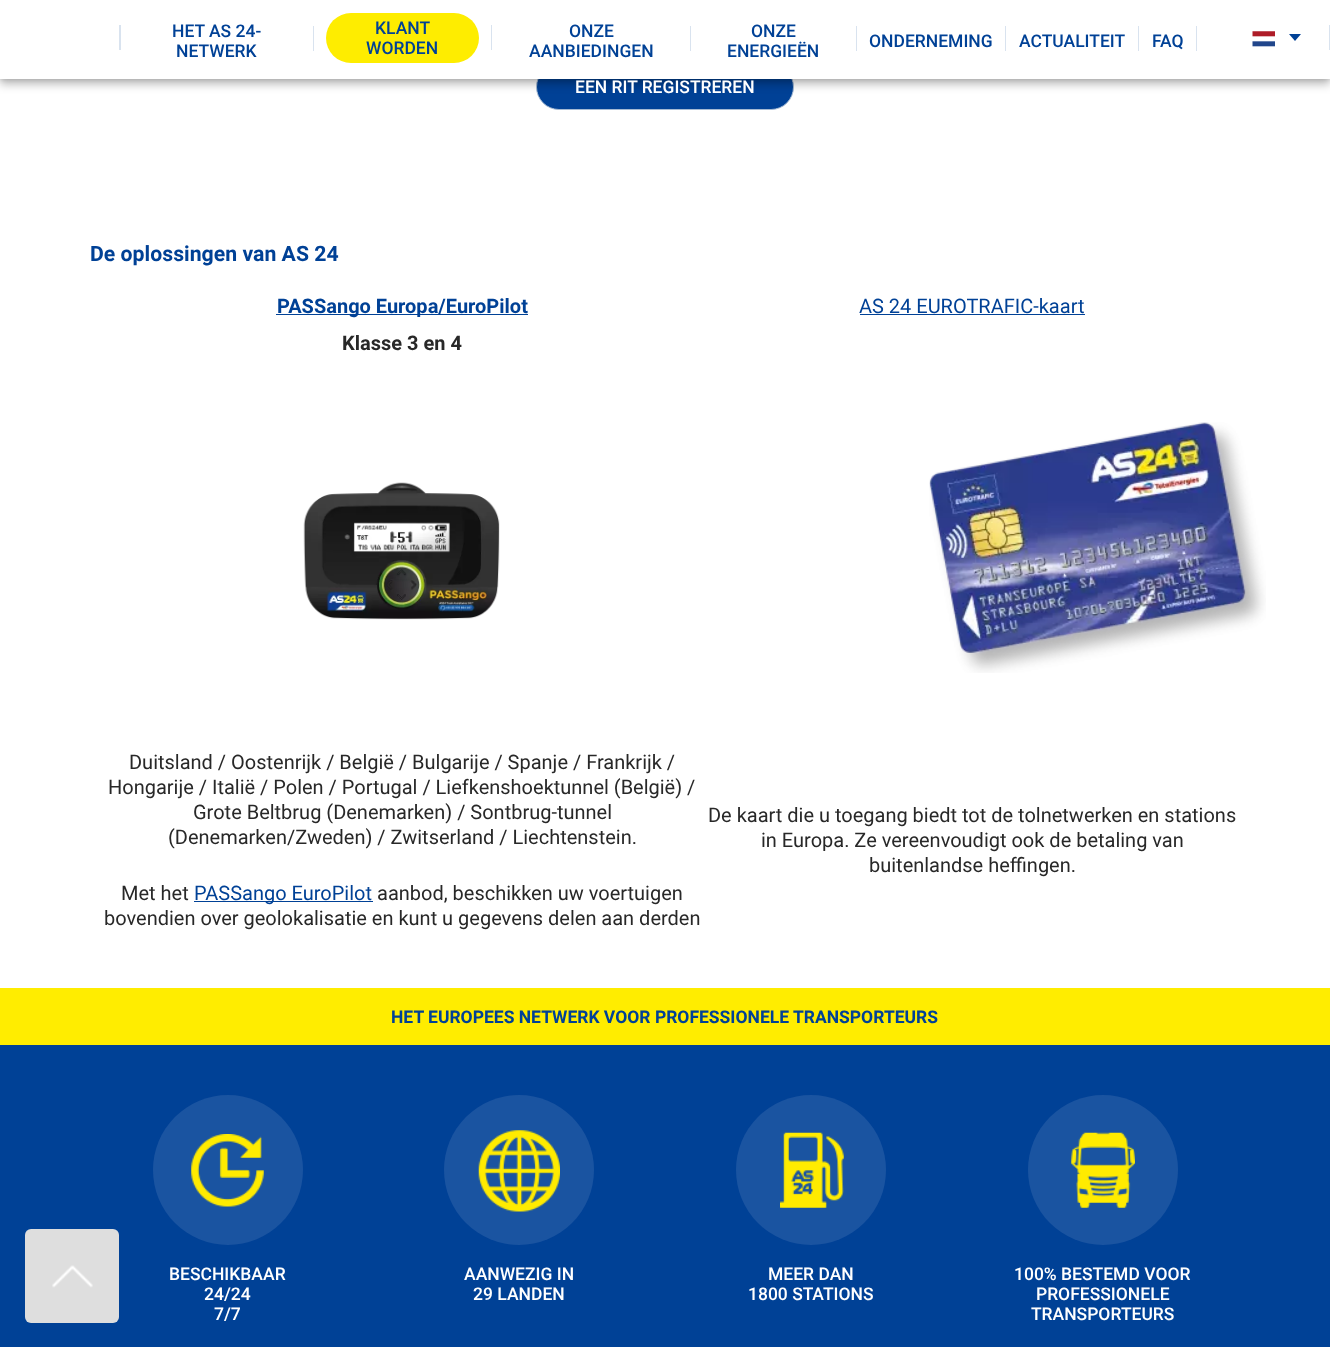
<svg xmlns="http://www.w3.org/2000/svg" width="1330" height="1347">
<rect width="100%" height="100%" fill="#fff"/>
<rect y="1045" width="1330" height="302" fill="#004196"/>
<rect x="25" y="1229" width="94" height="94" rx="6" fill="#dedede"/>
<image x="52" y="1265" width="41" height="23" href="media/1.png"/>
<rect x="536.5" y="64.5" width="257" height="45" rx="22.5" fill="#004196" stroke="#a5bad3"/>
<rect y="5" width="1330" height="79" fill="#00000047" filter="blur(5px)"/>
<rect width="1330" height="79" fill="#00000024" filter="blur(2.5px)"/>
<rect width="1330" height="79" fill="#fff"/>
<rect x="119" y="25" width="2" height="25" fill="#d9e3ef"/>
<text x="172" y="37" style="font-family:Roboto;font-size:17.5px;font-weight:500;fill:#004196">HET AS 24-</text>
<text x="176" y="57" style="font-family:Roboto;font-size:17.5px;font-weight:500;fill:#004196">NETWERK</text>
<rect x="313" y="26" width="1" height="25" fill="#d9e3ef"/>
<rect x="326" y="13" width="153" height="50" rx="25" fill="#feed00"/>
<text x="375" y="34" style="font-family:Roboto;font-size:17.5px;font-weight:500;fill:#004196">KLANT</text>
<text x="366" y="54" style="font-family:Roboto;font-size:17.5px;font-weight:500;fill:#004196">WORDEN</text>
<rect x="491" y="25" width="1" height="25" fill="#d9e3ef"/>
<text x="569" y="37" style="font-family:Roboto;font-size:17.5px;font-weight:500;fill:#004196">ONZE</text>
<text x="529" y="57" style="font-family:Roboto;font-size:17.5px;font-weight:500;fill:#004196">AANBIEDINGEN</text>
<rect x="690" y="26" width="1" height="25" fill="#d9e3ef"/>
<text x="751" y="37" style="font-family:Roboto;font-size:17.5px;font-weight:500;fill:#004196">ONZE</text>
<text x="727" y="57" style="font-family:Roboto;font-size:17.5px;font-weight:500;fill:#004196">ENERGIEËN</text>
<rect x="856" y="26" width="1" height="25" fill="#d9e3ef"/>
<text x="869" y="47" style="font-family:Roboto;font-size:17.5px;font-weight:500;fill:#004196">ONDERNEMING</text>
<rect x="1005" y="26" width="1" height="25" fill="#d9e3ef"/>
<text x="1019" y="47" style="font-family:Roboto;font-size:17.5px;font-weight:500;fill:#004196">ACTUALITEIT</text>
<rect x="1138" y="26" width="1" height="25" fill="#d9e3ef"/>
<text x="1152" y="47" style="font-family:Roboto;font-size:17.5px;font-weight:500;fill:#004196">FAQ</text>
<rect x="1196" y="26" width="1" height="25" fill="#d9e3ef"/>
<image x="1252" y="31" width="23" height="16" href="media/2.png"/>
<path d="M1289 34h12l-6 7z" fill="#004196"/>
<rect x="1329" y="25" width="1" height="25" fill="#d9e3ef"/>
<text x="575" y="93" style="font-family:Roboto;font-size:17.5px;font-weight:500;fill:#fff">EEN RIT REGISTREREN</text>
<text x="90" y="261" style="font-family:Roboto;font-size:21.25px;font-weight:bold;fill:#004196">De oplossingen van AS 24</text>
<rect x="276" y="314" width="252" height="1" fill="#004196"/>
<text x="277" y="313" style="font-family:Roboto;font-size:20px;font-weight:bold;fill:#004196">PASSango Europa/EuroPilot</text>
<text x="859" y="313" style="font-family:Roboto;font-size:20px;fill:#004196">AS 24 EUROTRAFIC-kaart</text>
<rect x="860" y="314" width="225" height="1" fill="#004196"/>
<text x="342" y="350" style="font-family:Roboto;font-size:20px;font-weight:bold;fill:#282828">Klasse 3 en 4</text>
<image x="303" y="482" width="197" height="138" href="media/3.png"/>
<image x="929" y="422" width="337" height="251" href="media/4.png"/>
<text x="129" y="769" style="font-family:Roboto;font-size:20px;fill:#282828">Duitsland / Oostenrijk / België / Bulgarije / Spanje / Frankrijk /</text>
<text x="108" y="794" style="font-family:Roboto;font-size:20px;fill:#282828">Hongarije / Italië / Polen / Portugal / Liefkenshoektunnel (België) /</text>
<text x="193" y="819" style="font-family:Roboto;font-size:20px;fill:#282828">Grote Beltbrug (Denemarken) / Sontbrug-tunnel</text>
<text x="168" y="844" style="font-family:Roboto;font-size:20px;fill:#282828">(Denemarken/Zweden) / Zwitserland / Liechtenstein.</text>
<text x="121" y="900" style="font-family:Roboto;font-size:20px;fill:#282828">Met het</text>
<rect x="194" y="901" width="179" height="1" fill="#004196"/>
<text x="194" y="900" style="font-family:Roboto;font-size:20px;fill:#004196">PASSango EuroPilot</text>
<text x="377" y="900" style="font-family:Roboto;font-size:20px;fill:#282828">aanbod, beschikken uw voertuigen</text>
<text x="104" y="925" style="font-family:Roboto;font-size:20px;fill:#282828">bovendien over geolokalisatie en kunt u gegevens delen aan derden</text>
<text x="708" y="822" style="font-family:Roboto;font-size:20px;fill:#282828">De kaart die u toegang biedt tot de tolnetwerken en stations</text>
<text x="761" y="847" style="font-family:Roboto;font-size:20px;fill:#282828">in Europa. Ze vereenvoudigt ook de betaling van</text>
<text x="869" y="872" style="font-family:Roboto;font-size:20px;fill:#282828">buitenlandse heffingen.</text>
<rect y="988" width="1330" height="57" fill="#ffed00"/>
<text x="391" y="1023" style="font-family:Roboto;font-size:17.5px;font-weight:bold;fill:#004196">HET EUROPEES NETWERK VOOR PROFESSIONELE TRANSPORTEURS</text>
<circle cx="228" cy="1170" r="75" fill="#1a54a1"/>
<image x="191" y="1134" width="73" height="73" href="media/5.png"/>
<text x="169" y="1280" style="font-family:Roboto;font-size:17.5px;font-weight:500;fill:#fff">BESCHIKBAAR</text>
<text x="204" y="1300" style="font-family:Roboto;font-size:17.5px;font-weight:500;fill:#fff">24/24</text>
<text x="214" y="1320" style="font-family:Roboto;font-size:17.5px;font-weight:500;fill:#fff">7/7</text>
<circle cx="519" cy="1170" r="75" fill="#1a54a1"/>
<image x="478" y="1130" width="82" height="82" href="media/6.png"/>
<text x="464" y="1280" style="font-family:Roboto;font-size:17.5px;font-weight:500;fill:#fff">AANWEZIG IN</text>
<text x="473" y="1300" style="font-family:Roboto;font-size:17.5px;font-weight:500;fill:#fff">29 LANDEN</text>
<circle cx="811" cy="1170" r="75" fill="#1a54a1"/>
<image x="780" y="1132" width="64" height="76" href="media/7.png"/>
<text x="768" y="1280" style="font-family:Roboto;font-size:17.5px;font-weight:500;fill:#fff">MEER DAN</text>
<text x="748" y="1300" style="font-family:Roboto;font-size:17.5px;font-weight:500;fill:#fff">1800 STATIONS</text>
<circle cx="1103" cy="1170" r="75" fill="#1a54a1"/>
<image x="1071" y="1132" width="64" height="76" href="media/8.png"/>
<text x="1014" y="1280" style="font-family:Roboto;font-size:17.5px;font-weight:500;fill:#fff">100% BESTEMD VOOR</text>
<text x="1036" y="1300" style="font-family:Roboto;font-size:17.5px;font-weight:500;fill:#fff">PROFESSIONELE</text>
<text x="1031" y="1320" style="font-family:Roboto;font-size:17.5px;font-weight:500;fill:#fff">TRANSPORTEURS</text>
</svg>
